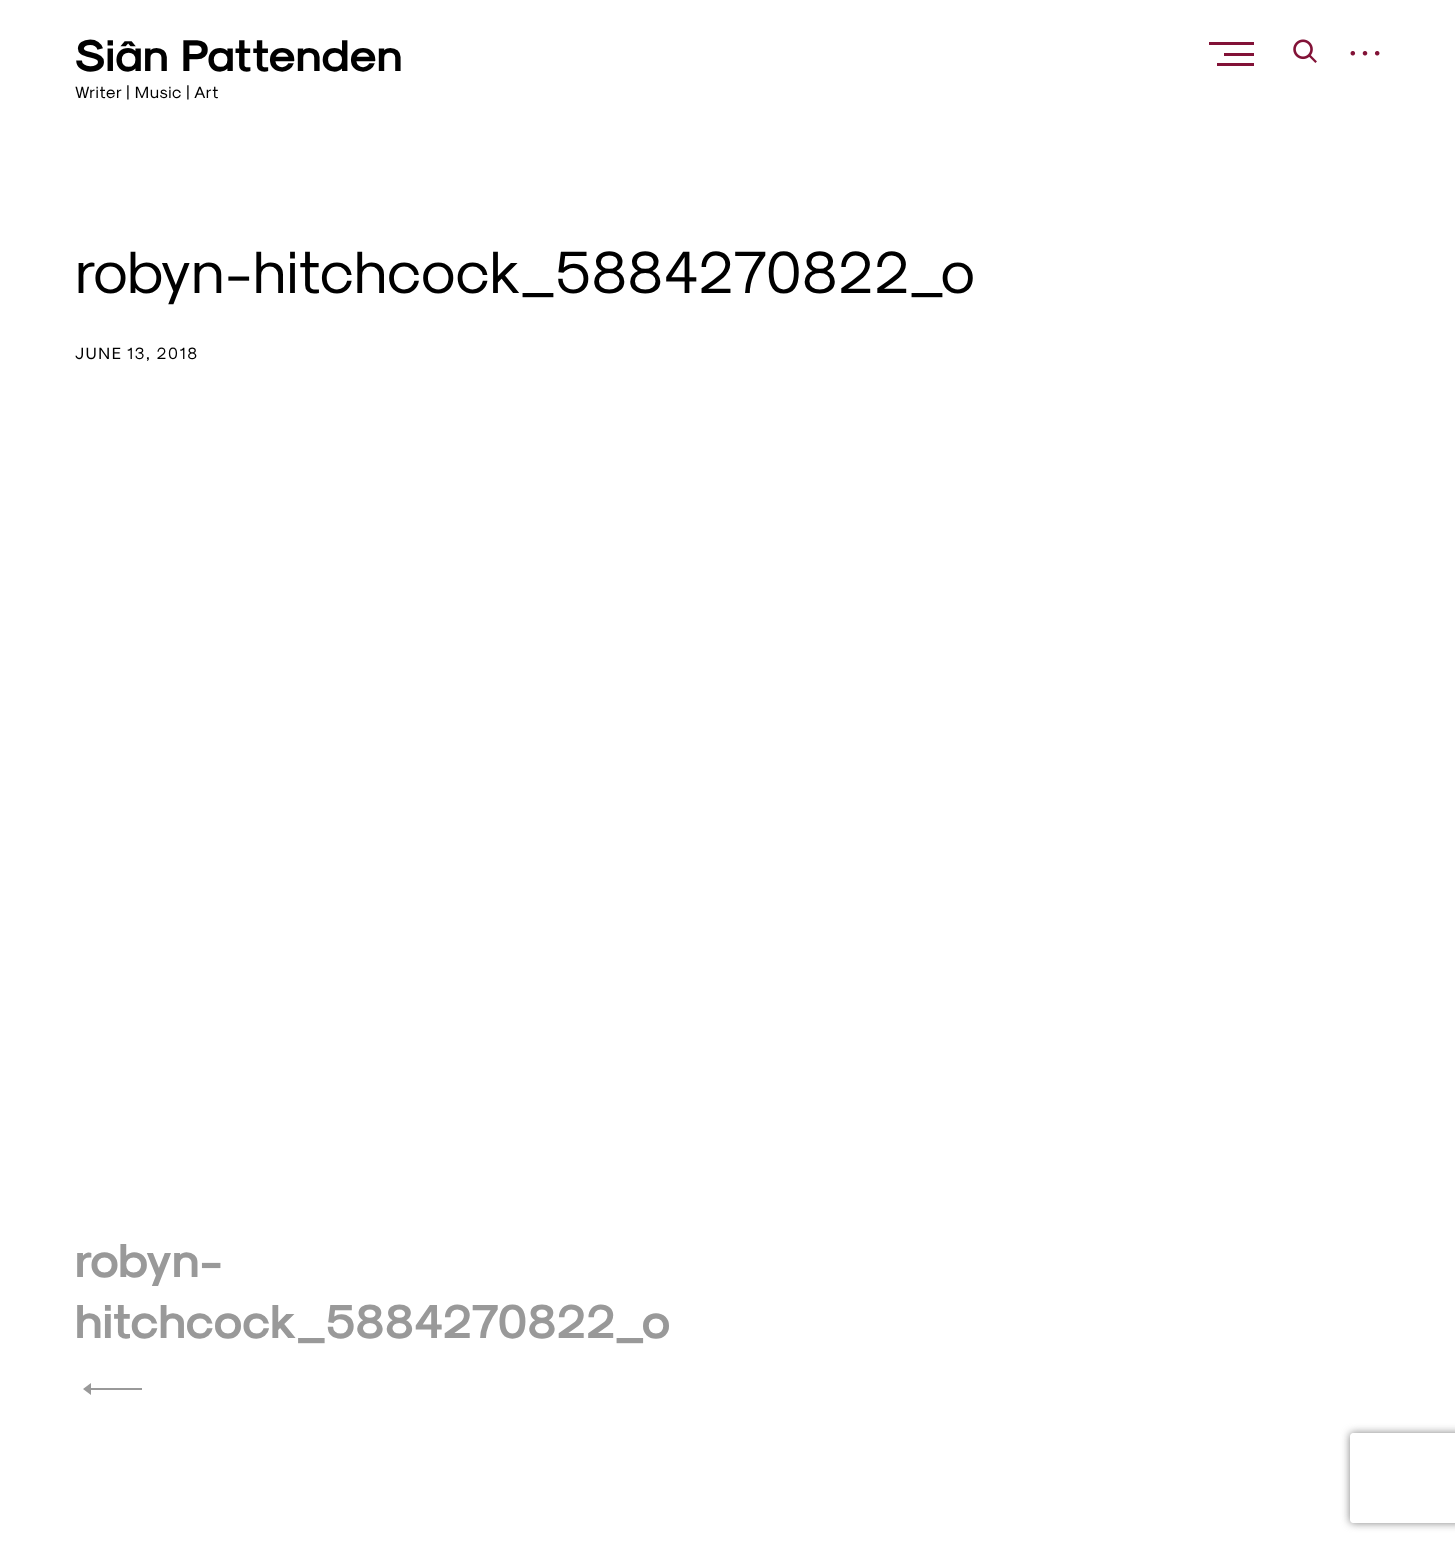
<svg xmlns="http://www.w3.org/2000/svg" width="1455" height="1543">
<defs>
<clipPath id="clip1"><path d="M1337 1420h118v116h-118zm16 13h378c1.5 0 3 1.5 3 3v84c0 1.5-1.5 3-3 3h-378c-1.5 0-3-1.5-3-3v-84c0-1.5 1.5-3 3-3z" clip-rule="evenodd"/></clipPath>
</defs>
<rect width="100%" height="100%" fill="#fff"/>
<text x="75" y="71" style="font-family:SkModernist;font-size:45px;font-weight:bold;letter-spacing:0.25px;fill:#000">Siân Pattenden</text>
<text x="75" y="98" style="font-family:SkModernist;font-size:16.5px;letter-spacing:0.6px;fill:#000">Writer | Music | Art</text>
<rect x="1224" y="53" width="30" height="3" fill="#821237"/>
<rect x="1209" y="42" width="45" height="3" fill="#821237"/>
<rect x="1217" y="63" width="37" height="3" fill="#821237"/>
<image x="1293" y="39" width="24" height="24" href="media/1.png"/>
<image x="1350" y="51" width="30" height="5" href="media/2.png"/>
<text x="75" y="293" style="font-family:SkModernist;font-size:60px;fill:#000">robyn-hitchcock_5884270822_o</text>
<text x="75" y="359" style="font-family:SkModernist;font-size:16.5px;letter-spacing:1.5px;fill:#000">JUNE 13, 2018</text>
<text x="75" y="1277" style="font-family:SkModernist;font-size:48px;font-weight:bold;fill:#999">robyn-</text>
<text x="75" y="1338" style="font-family:SkModernist;font-size:48px;font-weight:bold;fill:#999">hitchcock_5884270822_o</text>
<path d="M91 1390h51v-2h-51v-5l-8 6l8 6z" fill="#999"/>
<g clip-path="url(#clip1)">
<rect x="1350" y="1433" width="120" height="90" rx="3" fill="#808080" filter="blur(4px)"/>
</g>
</svg>
